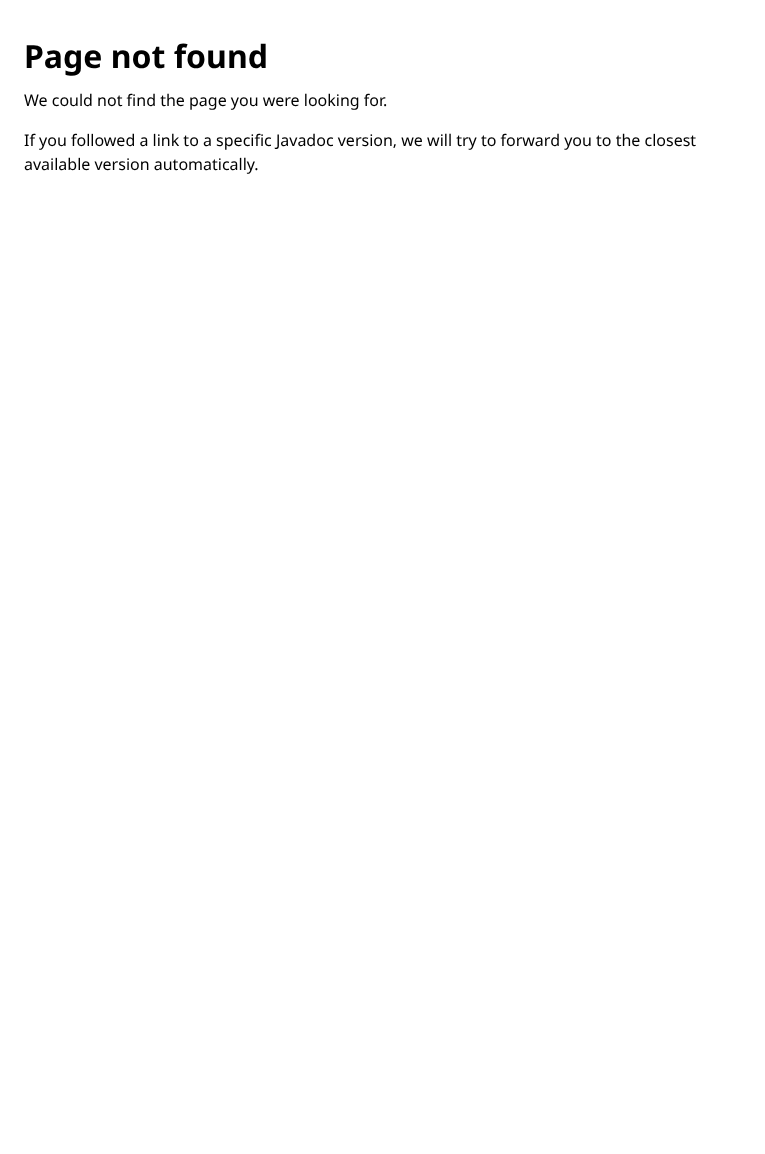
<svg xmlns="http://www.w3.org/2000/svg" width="765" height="1154">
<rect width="100%" height="100%" fill="#fff"/>
<text x="24" y="68" style="font-family:Noto Sans;font-size:32px;font-weight:bold;fill:#000">Page not found</text>
<text x="24" y="106" style="font-family:Noto Sans;font-size:16px;fill:#000">We could not find the page you were looking for.</text>
<text x="24" y="146" style="font-family:Noto Sans;font-size:16px;fill:#000">If you followed a link to a specific Javadoc version, we will try to forward you to the closest</text>
<text x="24" y="170" style="font-family:Noto Sans;font-size:16px;fill:#000">available version automatically.</text>
</svg>
